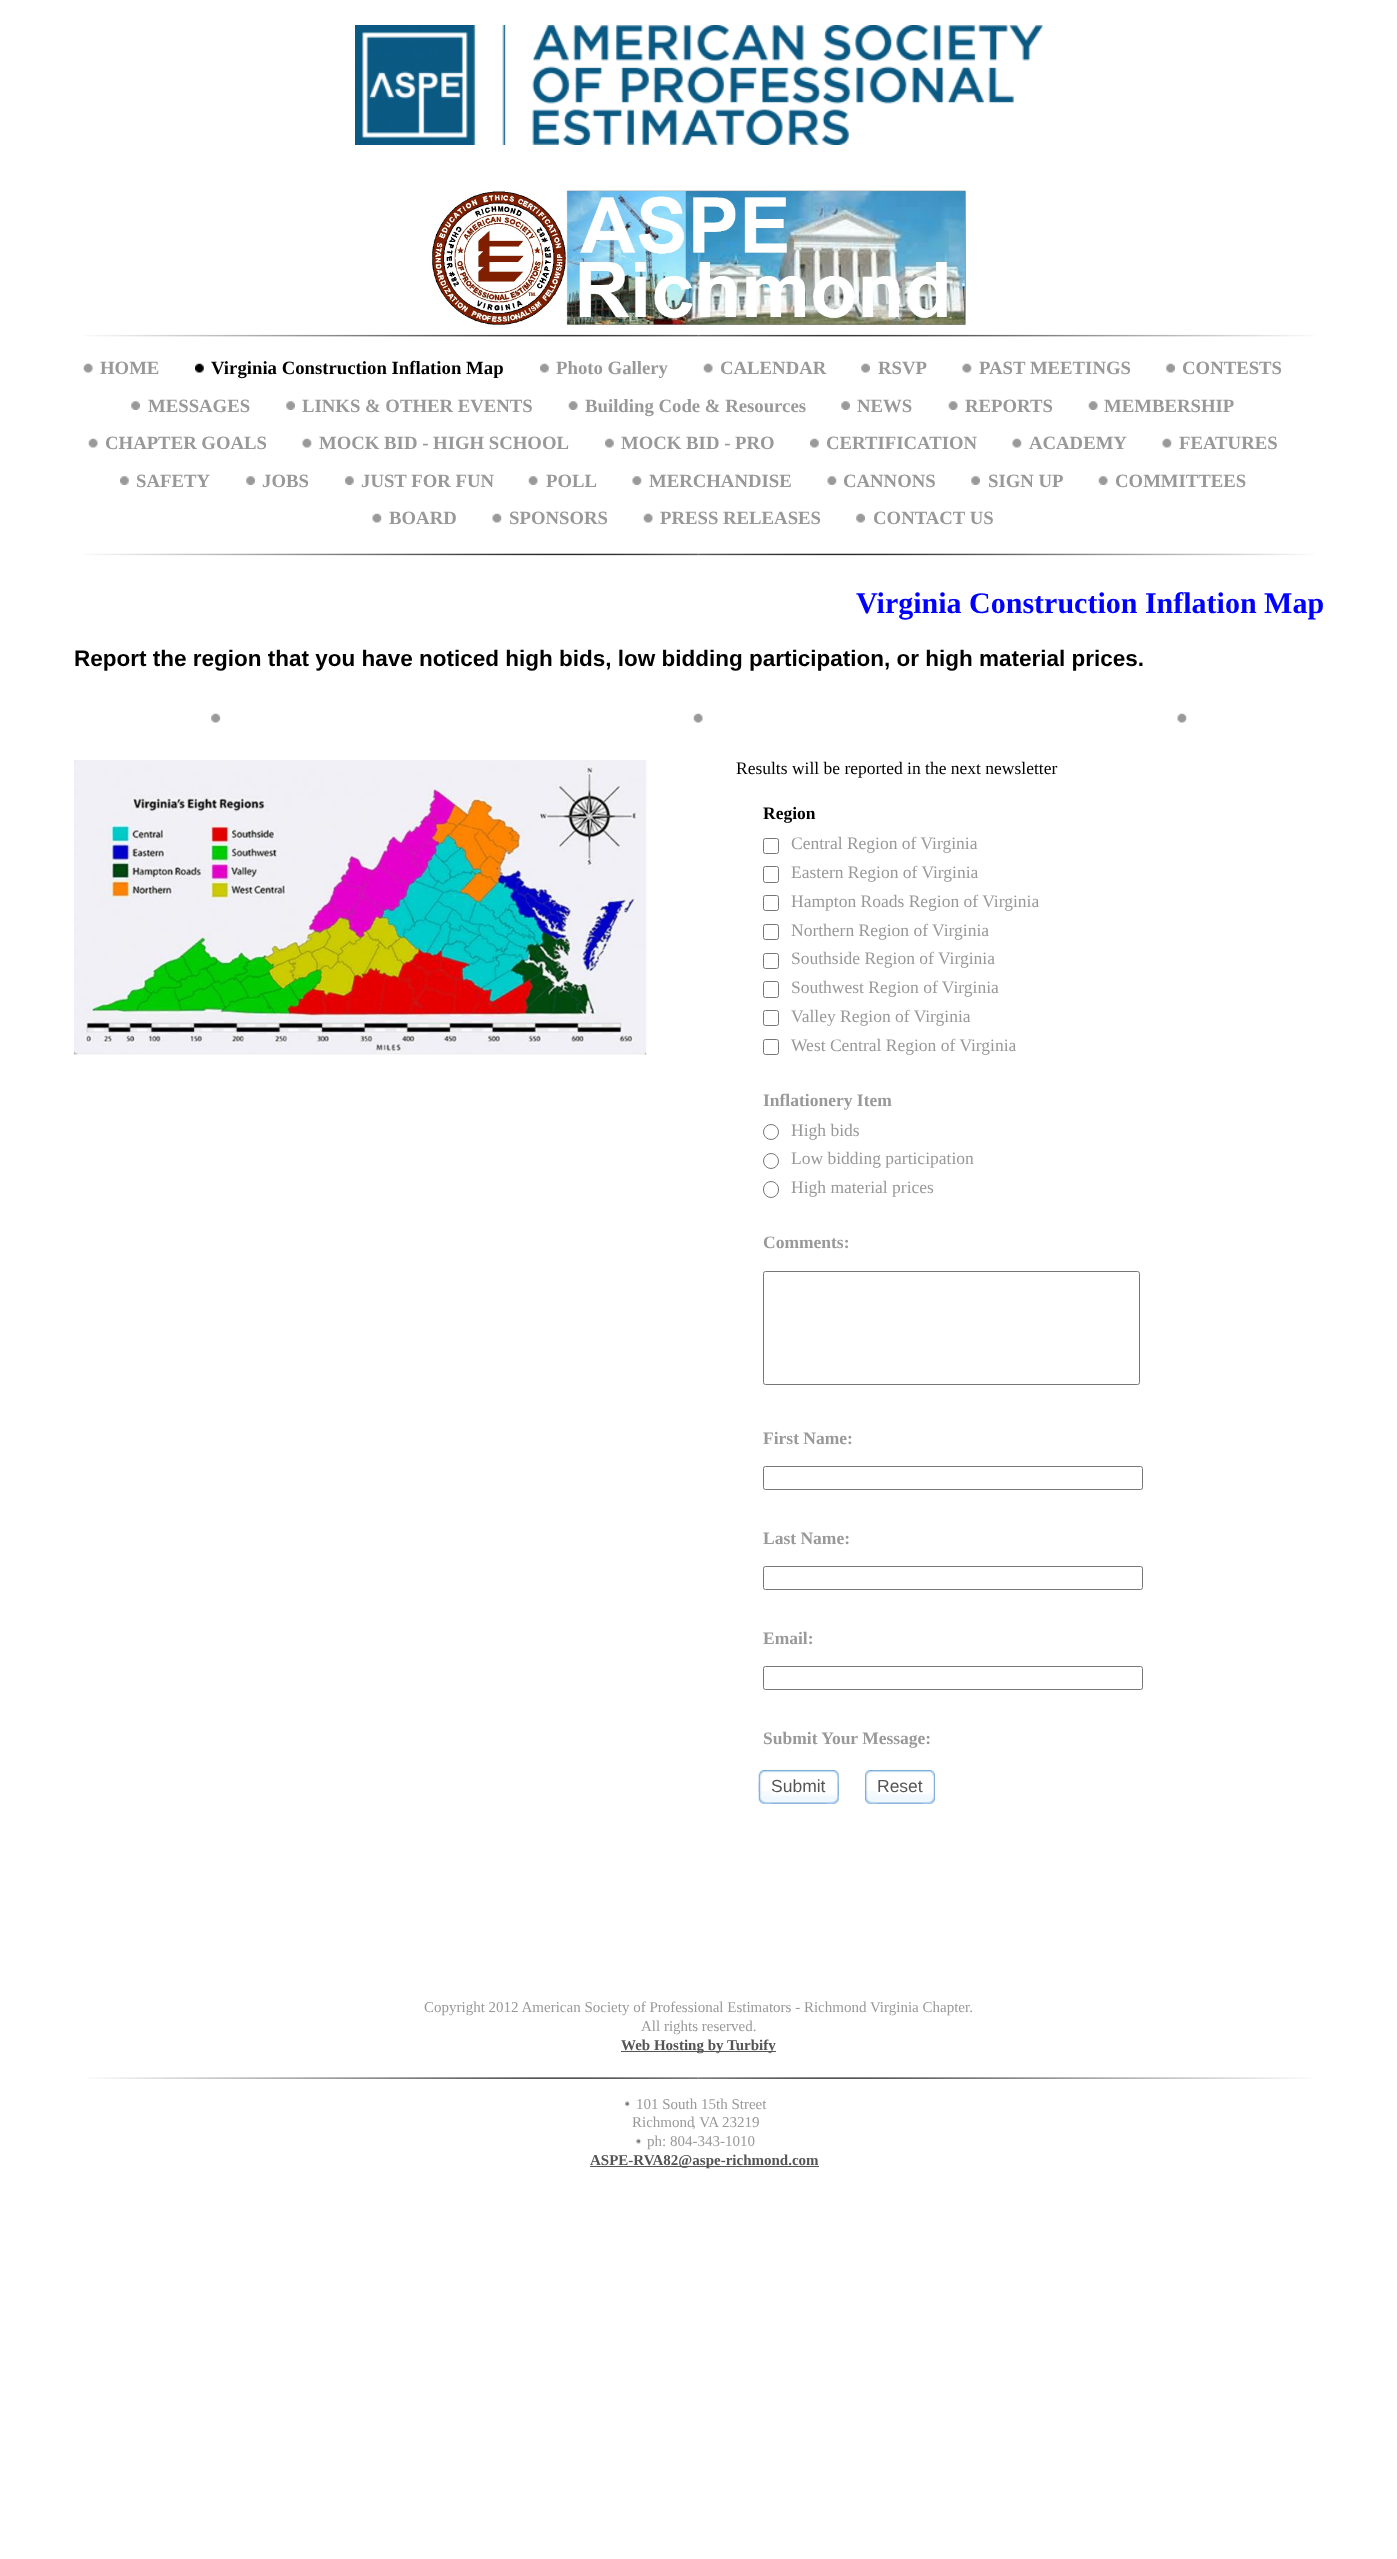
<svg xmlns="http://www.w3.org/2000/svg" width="1397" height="2559">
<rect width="100%" height="100%" fill="#fff"/>
<image x="84" y="334" width="615" height="3" href="media/1.png"/>
<image x="698" y="334" width="616" height="3" href="media/2.png"/>
<image x="355" y="25" width="688" height="120" href="media/3.png"/>
<image x="431" y="190" width="535" height="135" href="media/4.png"/>
<image x="84" y="553" width="615" height="3" href="media/5.png"/>
<image x="698" y="553" width="616" height="3" href="media/6.png"/>
<image x="83" y="363" width="10" height="10" href="media/7.png"/>
<text x="100" y="374" style="font-family:Liberation Serif;font-size:18.75px;font-weight:bold;fill:#999">HOME</text>
<image x="195" y="363" width="9" height="10" href="media/8.png"/>
<text x="211" y="374" style="font-family:Liberation Serif;font-size:18.75px;font-weight:bold;fill:#000">Virginia Construction Inflation Map</text>
<image x="540" y="363" width="9" height="10" href="media/9.png"/>
<text x="556" y="374" style="font-family:Liberation Serif;font-size:18.75px;font-weight:bold;fill:#999">Photo Gallery</text>
<image x="703" y="363" width="10" height="10" href="media/7.png"/>
<text x="720" y="374" style="font-family:Liberation Serif;font-size:18.75px;font-weight:bold;fill:#999">CALENDAR</text>
<image x="861" y="363" width="9" height="10" href="media/10.png"/>
<text x="878" y="374" style="font-family:Liberation Serif;font-size:18.75px;font-weight:bold;fill:#999">RSVP</text>
<image x="962" y="363" width="10" height="10" href="media/11.png"/>
<text x="979" y="374" style="font-family:Liberation Serif;font-size:18.75px;font-weight:bold;fill:#999">PAST MEETINGS</text>
<image x="1166" y="363" width="9" height="10" href="media/10.png"/>
<text x="1182" y="374" style="font-family:Liberation Serif;font-size:18.75px;font-weight:bold;fill:#999">CONTESTS</text>
<image x="131" y="401" width="9" height="9" href="media/12.png"/>
<text x="148" y="412" style="font-family:Liberation Serif;font-size:18.75px;font-weight:bold;fill:#999">MESSAGES</text>
<image x="286" y="401" width="9" height="9" href="media/12.png"/>
<text x="302" y="412" style="font-family:Liberation Serif;font-size:18.75px;font-weight:bold;fill:#999">LINKS &amp; OTHER EVENTS</text>
<image x="568" y="401" width="10" height="9" href="media/13.png"/>
<text x="585" y="412" style="font-family:Liberation Serif;font-size:18.75px;font-weight:bold;fill:#999">Building Code &amp; Resources</text>
<image x="841" y="401" width="9" height="9" href="media/12.png"/>
<text x="857" y="412" style="font-family:Liberation Serif;font-size:18.75px;font-weight:bold;fill:#999">NEWS</text>
<image x="948" y="401" width="10" height="9" href="media/13.png"/>
<text x="965" y="412" style="font-family:Liberation Serif;font-size:18.75px;font-weight:bold;fill:#999">REPORTS</text>
<image x="1088" y="401" width="10" height="9" href="media/13.png"/>
<text x="1104" y="412" style="font-family:Liberation Serif;font-size:18.75px;font-weight:bold;fill:#999">MEMBERSHIP</text>
<image x="88" y="438" width="10" height="10" href="media/7.png"/>
<text x="105" y="449" style="font-family:Liberation Serif;font-size:18.75px;font-weight:bold;fill:#999">CHAPTER GOALS</text>
<image x="302" y="438" width="10" height="10" href="media/14.png"/>
<text x="319" y="449" style="font-family:Liberation Serif;font-size:18.75px;font-weight:bold;fill:#999">MOCK BID - HIGH SCHOOL</text>
<image x="605" y="438" width="9" height="10" href="media/15.png"/>
<text x="621" y="449" style="font-family:Liberation Serif;font-size:18.75px;font-weight:bold;fill:#999">MOCK BID - PRO</text>
<image x="810" y="438" width="9" height="10" href="media/9.png"/>
<text x="826" y="449" style="font-family:Liberation Serif;font-size:18.75px;font-weight:bold;fill:#999">CERTIFICATION</text>
<image x="1012" y="438" width="10" height="10" href="media/14.png"/>
<text x="1029" y="449" style="font-family:Liberation Serif;font-size:18.75px;font-weight:bold;fill:#999">ACADEMY</text>
<image x="1162" y="438" width="10" height="10" href="media/11.png"/>
<text x="1179" y="449" style="font-family:Liberation Serif;font-size:18.75px;font-weight:bold;fill:#999">FEATURES</text>
<image x="120" y="476" width="9" height="9" href="media/16.png"/>
<text x="136" y="487" style="font-family:Liberation Serif;font-size:18.75px;font-weight:bold;fill:#999">SAFETY</text>
<image x="246" y="476" width="9" height="9" href="media/12.png"/>
<text x="262" y="487" style="font-family:Liberation Serif;font-size:18.75px;font-weight:bold;fill:#999">JOBS</text>
<image x="345" y="476" width="9" height="9" href="media/16.png"/>
<text x="361" y="487" style="font-family:Liberation Serif;font-size:18.75px;font-weight:bold;fill:#999">JUST FOR FUN</text>
<image x="528" y="476" width="10" height="9" href="media/17.png"/>
<text x="546" y="487" style="font-family:Liberation Serif;font-size:18.75px;font-weight:bold;fill:#999">POLL</text>
<image x="632" y="476" width="10" height="9" href="media/18.png"/>
<text x="649" y="487" style="font-family:Liberation Serif;font-size:18.75px;font-weight:bold;fill:#999">MERCHANDISE</text>
<image x="827" y="476" width="10" height="9" href="media/19.png"/>
<text x="843" y="487" style="font-family:Liberation Serif;font-size:18.75px;font-weight:bold;fill:#999">CANNONS</text>
<image x="971" y="476" width="9" height="9" href="media/12.png"/>
<text x="988" y="487" style="font-family:Liberation Serif;font-size:18.75px;font-weight:bold;fill:#999">SIGN UP</text>
<image x="1098" y="476" width="10" height="9" href="media/13.png"/>
<text x="1115" y="487" style="font-family:Liberation Serif;font-size:18.75px;font-weight:bold;fill:#999">COMMITTEES</text>
<image x="372" y="513" width="10" height="10" href="media/11.png"/>
<text x="389" y="524" style="font-family:Liberation Serif;font-size:18.75px;font-weight:bold;fill:#999">BOARD</text>
<image x="492" y="513" width="10" height="10" href="media/14.png"/>
<text x="509" y="524" style="font-family:Liberation Serif;font-size:18.75px;font-weight:bold;fill:#999">SPONSORS</text>
<image x="643" y="513" width="10" height="10" href="media/20.png"/>
<text x="660" y="524" style="font-family:Liberation Serif;font-size:18.75px;font-weight:bold;fill:#999">PRESS RELEASES</text>
<image x="856" y="513" width="9" height="10" href="media/10.png"/>
<text x="873" y="524" style="font-family:Liberation Serif;font-size:18.75px;font-weight:bold;fill:#999">CONTACT US</text>
<text x="856" y="613" style="font-family:Liberation Serif;font-size:30px;font-weight:bold;fill:#00f">Virginia Construction Inflation Map</text>
<image x="211" y="713" width="976" height="10" href="media/21.png"/>
<text x="74" y="666" style="font-family:Liberation Sans;font-size:22.5px;font-weight:bold;fill:#000">Report the region that you have noticed high bids, low bidding participation, or high material prices.</text>
<image x="73" y="760" width="574" height="295" href="media/22.png"/>
<text x="736" y="774" style="font-family:Liberation Serif;font-size:17.5px;fill:#000">Results will be reported in the next newsletter</text>
<text x="763" y="819" style="font-family:Liberation Serif;font-size:17.5px;font-weight:bold;fill:#000">Region</text>
<rect x="763.5" y="838.5" width="15" height="15" rx="2" fill="none" stroke="#767676"/>
<text x="791" y="849" style="font-family:Liberation Serif;font-size:17.5px;fill:#999">Central Region of Virginia</text>
<rect x="763.5" y="866.5" width="15" height="16" rx="2" fill="none" stroke="#767676"/>
<text x="791" y="878" style="font-family:Liberation Serif;font-size:17.5px;fill:#999">Eastern Region of Virginia</text>
<rect x="763.5" y="895.5" width="15" height="15" rx="2" fill="none" stroke="#767676"/>
<text x="791" y="907" style="font-family:Liberation Serif;font-size:17.5px;fill:#999">Hampton Roads Region of Virginia</text>
<rect x="763.5" y="924.5" width="15" height="15" rx="2" fill="none" stroke="#767676"/>
<text x="791" y="936" style="font-family:Liberation Serif;font-size:17.5px;fill:#999">Northern Region of Virginia</text>
<rect x="763.5" y="953.5" width="15" height="15" rx="2" fill="none" stroke="#767676"/>
<text x="791" y="964" style="font-family:Liberation Serif;font-size:17.5px;fill:#999">Southside Region of Virginia</text>
<rect x="763.5" y="981.5" width="15" height="16" rx="2" fill="none" stroke="#767676"/>
<text x="791" y="993" style="font-family:Liberation Serif;font-size:17.5px;fill:#999">Southwest Region of Virginia</text>
<rect x="763.5" y="1010.5" width="15" height="15" rx="2" fill="none" stroke="#767676"/>
<text x="791" y="1022" style="font-family:Liberation Serif;font-size:17.5px;fill:#999">Valley Region of Virginia</text>
<rect x="763.5" y="1039.5" width="15" height="15" rx="2" fill="none" stroke="#767676"/>
<text x="791" y="1051" style="font-family:Liberation Serif;font-size:17.5px;fill:#999">West Central Region of Virginia</text>
<text x="763" y="1106" style="font-family:Liberation Serif;font-size:17.5px;font-weight:bold;fill:#999">Inflationery Item</text>
<circle cx="771" cy="1132" r="7.5" fill="none" stroke="#767676"/>
<text x="791" y="1136" style="font-family:Liberation Serif;font-size:17.5px;fill:#999">High bids</text>
<circle cx="771" cy="1161" r="7.5" fill="none" stroke="#767676"/>
<text x="791" y="1164" style="font-family:Liberation Serif;font-size:17.5px;fill:#999">Low bidding participation</text>
<rect x="763.5" y="1181.5" width="15" height="16" rx="7.5" fill="none" stroke="#767676"/>
<text x="791" y="1193" style="font-family:Liberation Serif;font-size:17.5px;fill:#999">High material prices</text>
<text x="763" y="1248" style="font-family:Liberation Serif;font-size:17.5px;font-weight:bold;fill:#999">Comments:</text>
<rect x="763.5" y="1271.5" width="376" height="113" rx="2" fill="none" stroke="#767676"/>
<text x="763" y="1444" style="font-family:Liberation Serif;font-size:17.5px;font-weight:bold;fill:#999">First Name:</text>
<rect x="763.5" y="1466.5" width="379" height="23" rx="2" fill="none" stroke="#767676"/>
<text x="763" y="1544" style="font-family:Liberation Serif;font-size:17.5px;font-weight:bold;fill:#999">Last Name:</text>
<rect x="763.5" y="1566.5" width="379" height="23" rx="2" fill="none" stroke="#767676"/>
<text x="763" y="1644" style="font-family:Liberation Serif;font-size:17.5px;font-weight:bold;fill:#999">Email:</text>
<rect x="763.5" y="1666.5" width="379" height="23" rx="2" fill="none" stroke="#767676"/>
<text x="763" y="1744" style="font-family:Liberation Serif;font-size:17.5px;font-weight:bold;fill:#999">Submit Your Message:</text>
<image x="771" y="1782" width="68" height="22" href="media/23.png"/>
<image x="758" y="1782" width="69" height="22" href="media/24.png"/>
<image x="758" y="1770" width="14" height="22" href="media/25.png"/>
<image x="771" y="1770" width="68" height="27" href="media/26.png"/>
<text x="771" y="1792" style="font-family:Liberation Sans;font-size:17.5px;fill:#555">Submit</text>
<image x="877" y="1794" width="58" height="10" href="media/27.png"/>
<image x="865" y="1791" width="58" height="13" href="media/28.png"/>
<image x="865" y="1770" width="13" height="21" href="media/29.png"/>
<image x="877" y="1770" width="58" height="24" href="media/30.png"/>
<text x="877" y="1792" style="font-family:Liberation Sans;font-size:17.5px;fill:#555">Reset</text>
<image x="87" y="2077" width="612" height="2" href="media/31.png"/>
<text x="424" y="2012" style="font-family:Liberation Serif;font-size:15px;fill:#999">Copyright 2012 American Society of Professional Estimators - Richmond Virginia Chapter.</text>
<text x="641" y="2031" style="font-family:Liberation Serif;font-size:15px;fill:#999">All rights reserved.</text>
<rect x="621" y="2051" width="155" height="1" fill="#555"/>
<text x="621" y="2050" style="font-family:Liberation Serif;font-size:15px;font-weight:bold;fill:#555">Web Hosting by Turbify</text>
<image x="698" y="2077" width="613" height="2" href="media/32.png"/>
<image x="625" y="2101" width="5" height="6" href="media/33.png"/>
<text x="636" y="2109" style="font-family:Liberation Serif;font-size:15px;fill:#999">101 South 15th Street</text>
<text x="632" y="2127" style="font-family:Liberation Serif;font-size:15px;fill:#999">Richmond</text>
<text x="692" y="2127" style="font-family:Liberation Serif;font-size:15px;fill:#999">, VA</text>
<text x="722" y="2127" style="font-family:Liberation Serif;font-size:15px;fill:#999">23219</text>
<image x="636" y="2138" width="6" height="6" href="media/34.png"/>
<text x="647" y="2146" style="font-family:Liberation Serif;font-size:15px;fill:#999">ph: 804-343-1010</text>
<rect x="590" y="2166" width="229" height="1" fill="#555"/>
<text x="590" y="2165" style="font-family:Liberation Serif;font-size:15px;font-weight:bold;fill:#555">ASPE-RVA82@aspe-richmond.com</text>
</svg>
